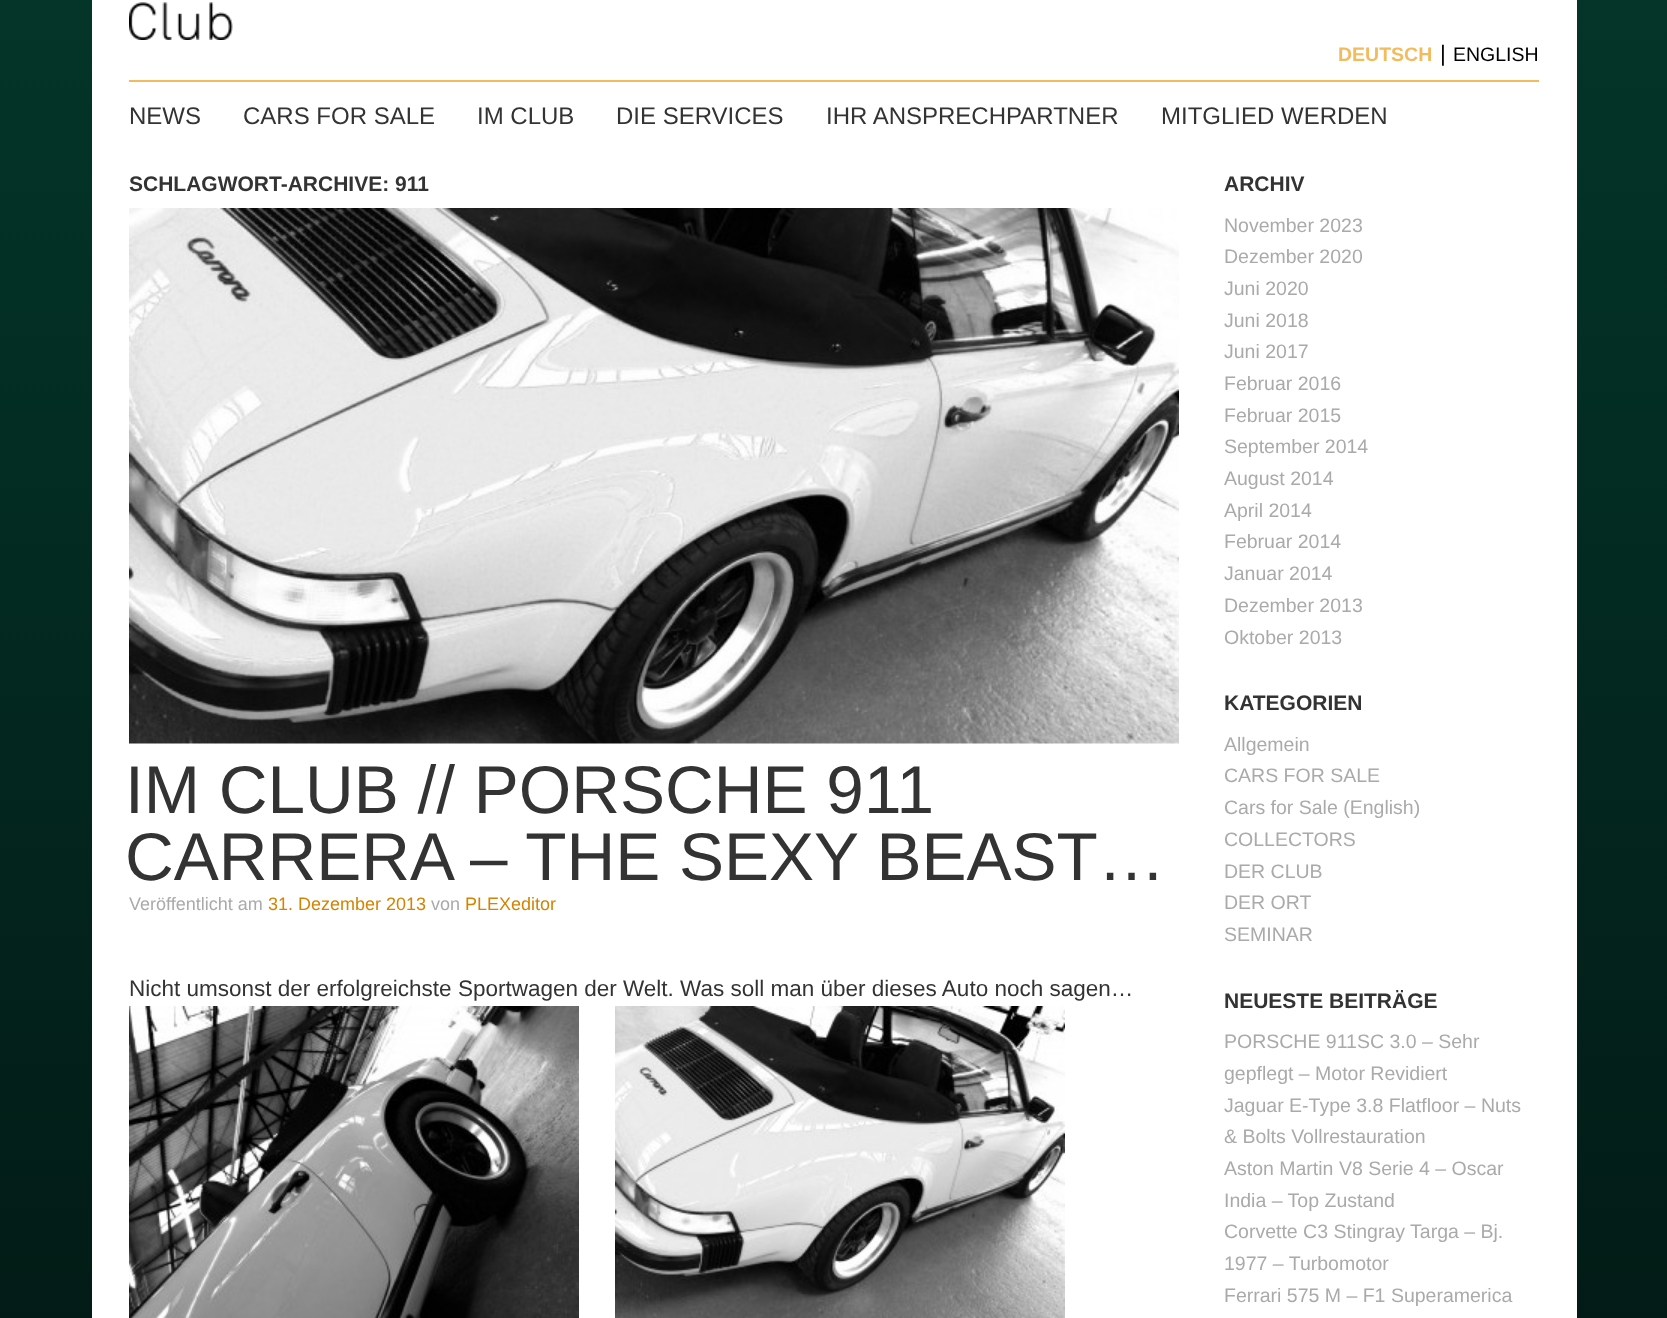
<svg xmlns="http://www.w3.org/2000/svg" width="1667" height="1318">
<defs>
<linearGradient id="g1" gradientUnits="userSpaceOnUse" x1="834" y1="0" x2="834" y2="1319"><stop offset="0" stop-color="#033528"/><stop offset="1" stop-color="#021b16"/></linearGradient>
</defs>
<rect width="100%" height="100%" fill="#fff"/>
<rect width="1667" height="1318" fill="url(#g1)"/>
<rect x="92" width="1485" height="1318" fill="#fff"/>
<image x="129" y="2" width="104" height="38" href="media/1.png"/>
<text x="1338" y="61" style="font-family:Liberation Sans;font-size:19.5px;font-weight:bold;fill:#f2bb5e">DEUTSCH</text>
<text x="1440" y="61" style="font-family:Liberation Sans;font-size:22.5px;fill:#000">|</text>
<text x="1453" y="61" style="font-family:Liberation Sans;font-size:19.5px;fill:#000">ENGLISH</text>
<rect x="129" y="80" width="1410" height="2" fill="#f2bb5e"/>
<text x="129" y="124" style="font-family:Liberation Sans;font-size:24px;fill:#333">NEWS</text>
<text x="243" y="124" style="font-family:Liberation Sans;font-size:24px;fill:#333">CARS FOR SALE</text>
<text x="477" y="124" style="font-family:Liberation Sans;font-size:24px;fill:#333">IM CLUB</text>
<text x="616" y="124" style="font-family:Liberation Sans;font-size:24px;fill:#333">DIE SERVICES</text>
<text x="826" y="124" style="font-family:Liberation Sans;font-size:24px;fill:#333">IHR ANSPRECHPARTNER</text>
<text x="1161" y="124" style="font-family:Liberation Sans;font-size:24px;fill:#333">MITGLIED WERDEN</text>
<text x="129" y="191" style="font-family:Liberation Sans;font-size:21px;font-weight:bold;fill:#333">SCHLAGWORT-ARCHIVE: 911</text>
<image x="129" y="208" width="1050" height="536" href="media/2.png"/>
<text x="125" y="813" style="font-family:Liberation Sans;font-size:67.5px;fill:#333">IM CLUB // PORSCHE 911</text>
<text x="125" y="880" style="font-family:Liberation Sans;font-size:67.5px;fill:#333">CARRERA – THE SEXY BEAST…</text>
<text x="129" y="910" style="font-family:Liberation Sans;font-size:18px;fill:#aaa">Veröffentlicht am</text>
<text x="268" y="910" style="font-family:Liberation Sans;font-size:18px;fill:#d38400">31. Dezember 2013</text>
<text x="431" y="910" style="font-family:Liberation Sans;font-size:18px;fill:#aaa">von</text>
<text x="465" y="910" style="font-family:Liberation Sans;font-size:18px;fill:#d38400">PLEXeditor</text>
<text x="129" y="996" style="font-family:Liberation Sans;font-size:22.5px;fill:#333">Nicht umsonst der erfolgreichste Sportwagen der Welt. Was soll man über dieses Auto noch sagen…</text>
<image x="129" y="1006" width="450" height="312" href="media/3.png"/>
<image x="615" y="1006" width="450" height="312" href="media/4.png"/>
<text x="1224" y="191" style="font-family:Liberation Sans;font-size:21px;font-weight:bold;fill:#333">ARCHIV</text>
<text x="1224" y="232" style="font-family:Liberation Sans;font-size:19.5px;fill:#aaa">November 2023</text>
<text x="1224" y="263" style="font-family:Liberation Sans;font-size:19.5px;fill:#aaa">Dezember 2020</text>
<text x="1224" y="295" style="font-family:Liberation Sans;font-size:19.5px;fill:#aaa">Juni 2020</text>
<text x="1224" y="327" style="font-family:Liberation Sans;font-size:19.5px;fill:#aaa">Juni 2018</text>
<text x="1224" y="358" style="font-family:Liberation Sans;font-size:19.5px;fill:#aaa">Juni 2017</text>
<text x="1224" y="390" style="font-family:Liberation Sans;font-size:19.5px;fill:#aaa">Februar 2016</text>
<text x="1224" y="422" style="font-family:Liberation Sans;font-size:19.5px;fill:#aaa">Februar 2015</text>
<text x="1224" y="453" style="font-family:Liberation Sans;font-size:19.5px;fill:#aaa">September 2014</text>
<text x="1224" y="485" style="font-family:Liberation Sans;font-size:19.5px;fill:#aaa">August 2014</text>
<text x="1224" y="517" style="font-family:Liberation Sans;font-size:19.5px;fill:#aaa">April 2014</text>
<text x="1224" y="548" style="font-family:Liberation Sans;font-size:19.5px;fill:#aaa">Februar 2014</text>
<text x="1224" y="580" style="font-family:Liberation Sans;font-size:19.5px;fill:#aaa">Januar 2014</text>
<text x="1224" y="612" style="font-family:Liberation Sans;font-size:19.5px;fill:#aaa">Dezember 2013</text>
<text x="1224" y="644" style="font-family:Liberation Sans;font-size:19.5px;fill:#aaa">Oktober 2013</text>
<text x="1224" y="710" style="font-family:Liberation Sans;font-size:21px;font-weight:bold;fill:#333">KATEGORIEN</text>
<text x="1224" y="751" style="font-family:Liberation Sans;font-size:19.5px;fill:#aaa">Allgemein</text>
<text x="1224" y="782" style="font-family:Liberation Sans;font-size:19.5px;fill:#aaa">CARS FOR SALE</text>
<text x="1224" y="814" style="font-family:Liberation Sans;font-size:19.5px;fill:#aaa">Cars for Sale (English)</text>
<text x="1224" y="846" style="font-family:Liberation Sans;font-size:19.5px;fill:#aaa">COLLECTORS</text>
<text x="1224" y="878" style="font-family:Liberation Sans;font-size:19.5px;fill:#aaa">DER CLUB</text>
<text x="1224" y="909" style="font-family:Liberation Sans;font-size:19.5px;fill:#aaa">DER ORT</text>
<text x="1224" y="941" style="font-family:Liberation Sans;font-size:19.5px;fill:#aaa">SEMINAR</text>
<text x="1224" y="1008" style="font-family:Liberation Sans;font-size:21px;font-weight:bold;fill:#333">NEUESTE BEITRÄGE</text>
<text x="1224" y="1048" style="font-family:Liberation Sans;font-size:19.5px;fill:#aaa">PORSCHE 911SC 3.0 – Sehr</text>
<text x="1224" y="1080" style="font-family:Liberation Sans;font-size:19.5px;fill:#aaa">gepflegt – Motor Revidiert</text>
<text x="1224" y="1112" style="font-family:Liberation Sans;font-size:19.5px;fill:#aaa">Jaguar E-Type 3.8 Flatfloor – Nuts</text>
<text x="1224" y="1143" style="font-family:Liberation Sans;font-size:19.5px;fill:#aaa">&amp; Bolts Vollrestauration</text>
<text x="1224" y="1175" style="font-family:Liberation Sans;font-size:19.5px;fill:#aaa">Aston Martin V8 Serie 4 – Oscar</text>
<text x="1224" y="1207" style="font-family:Liberation Sans;font-size:19.5px;fill:#aaa">India – Top Zustand</text>
<text x="1224" y="1238" style="font-family:Liberation Sans;font-size:19.5px;fill:#aaa">Corvette C3 Stingray Targa – Bj.</text>
<text x="1224" y="1270" style="font-family:Liberation Sans;font-size:19.5px;fill:#aaa">1977 – Turbomotor</text>
<text x="1224" y="1302" style="font-family:Liberation Sans;font-size:19.5px;fill:#aaa">Ferrari 575 M – F1 Superamerica</text>
</svg>
